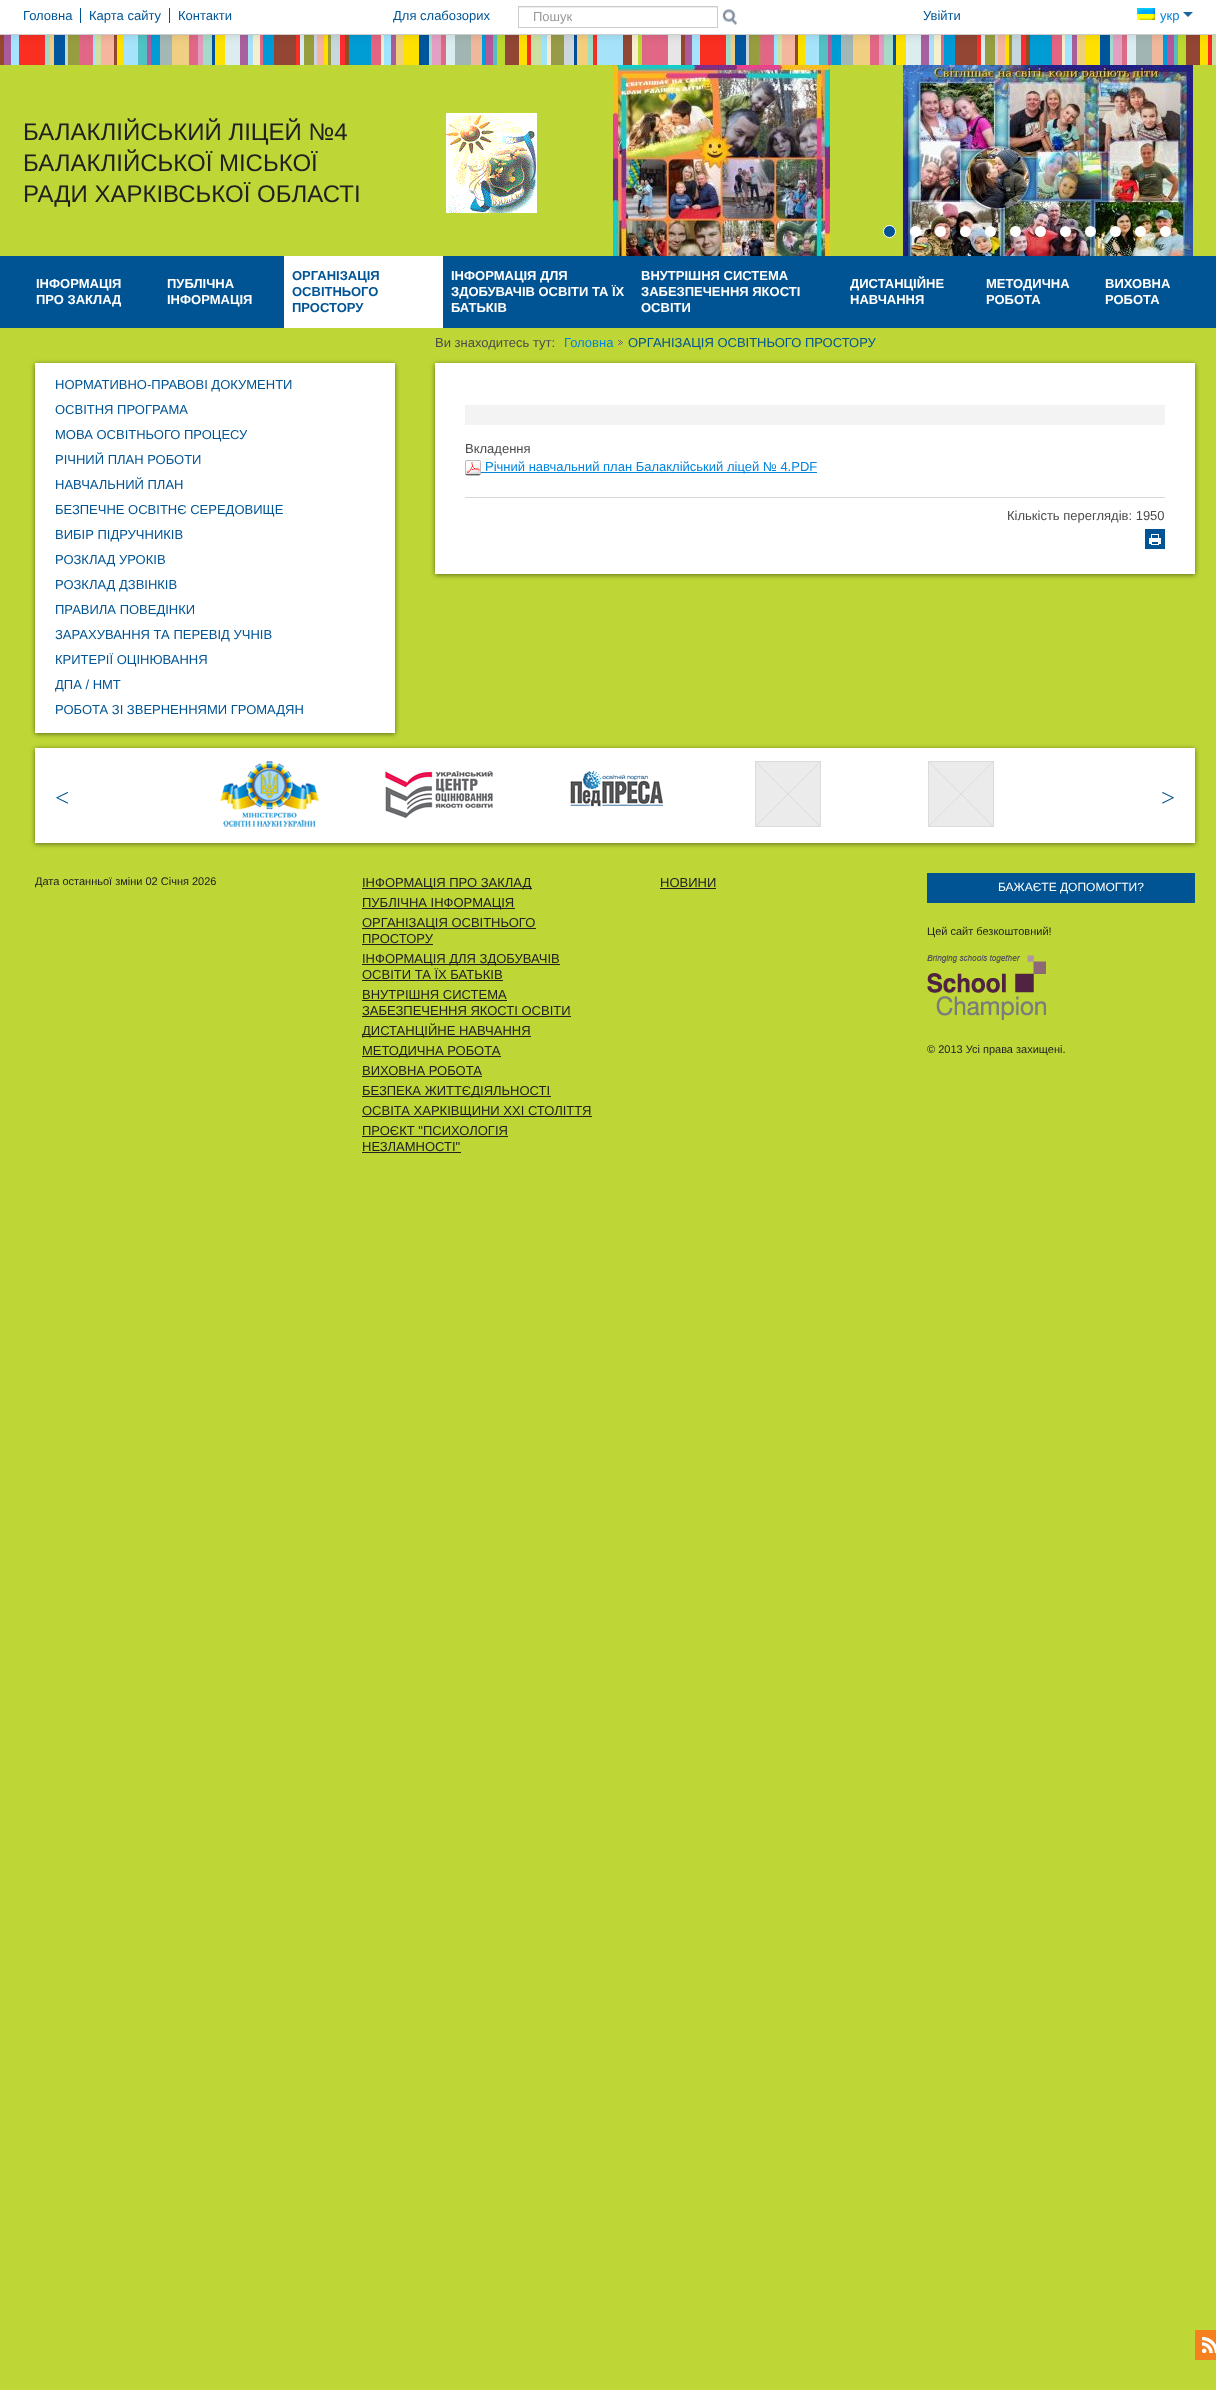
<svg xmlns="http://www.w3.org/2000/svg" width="1216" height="2390">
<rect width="100%" height="100%" fill="#bed736"/>
<image x="0" y="35" width="1216" height="30" href="media/1.png"/>
<rect y="1" width="1216" height="35" fill="#0000001a" filter="blur(5px)"/>
<rect width="1216" height="34" fill="#fff"/>
<rect y="34" width="1216" height="1" fill="#cdcdcd"/>
<text x="23" y="20" style="font-family:Liberation Sans;font-size:13px;fill:#005494">Головна</text>
<rect x="80" y="8" width="1" height="15" fill="#005494"/>
<text x="89" y="20" style="font-family:Liberation Sans;font-size:13px;fill:#005494">Карта сайту</text>
<rect x="169" y="8" width="1" height="15" fill="#005494"/>
<text x="178" y="20" style="font-family:Liberation Sans;font-size:13px;fill:#005494">Контакти</text>
<text x="393" y="20" style="font-family:Liberation Sans;font-size:13px;fill:#005494">Для слабозорих</text>
<rect x="519" y="7" width="198" height="1" fill="#ececec"/>
<rect x="518.5" y="6.5" width="199" height="21" fill="none" stroke="#ccc"/>
<text x="533" y="21" style="font-family:Liberation Sans;font-size:13px;fill:#999">Пошук</text>
<image x="722" y="9" width="15" height="16" href="media/2.png"/>
<text x="923" y="20" style="font-family:Liberation Sans;font-size:13px;fill:#005494">Увійти</text>
<image x="1137" y="8" width="18" height="12" href="media/3.png"/>
<text x="1160" y="20" style="font-family:Liberation Sans;font-size:13px;fill:#0184df">укр</text>
<path d="M1183 12h10l-5 5z" fill="#1a659f"/>
<text x="23" y="140" style="font-family:Liberation Sans;font-size:24px;fill:#212121">БАЛАКЛІЙСЬКИЙ ЛІЦЕЙ №4</text>
<text x="23" y="171" style="font-family:Liberation Sans;font-size:24px;fill:#212121">БАЛАКЛІЙСЬКОЇ МІСЬКОЇ</text>
<text x="23" y="202" style="font-family:Liberation Sans;font-size:24px;fill:#212121">РАДИ ХАРКІВСЬКОЇ ОБЛАСТІ</text>
<image x="446" y="113" width="91" height="100" href="media/4.png"/>
<image x="613" y="65" width="217" height="191" href="media/5.png"/>
<image x="903" y="65" width="290" height="191" href="media/6.png"/>
<circle cx="889.5" cy="231.5" r="6" fill="#005494" stroke="#fff"/>
<circle cx="915.5" cy="231.5" r="5.5" fill="#fff"/>
<circle cx="940.5" cy="231.5" r="5.5" fill="#fff"/>
<circle cx="965.5" cy="231.5" r="5.5" fill="#fff"/>
<circle cx="990.5" cy="231.5" r="5.5" fill="#fff"/>
<circle cx="1015.5" cy="231.5" r="5.5" fill="#fff"/>
<circle cx="1040.5" cy="231.5" r="5.5" fill="#fff"/>
<circle cx="1065.5" cy="231.5" r="5.5" fill="#fff"/>
<circle cx="1090.5" cy="231.5" r="5.5" fill="#fff"/>
<circle cx="1115.5" cy="231.5" r="5.5" fill="#fff"/>
<circle cx="1140.5" cy="231.5" r="5.5" fill="#fff"/>
<circle cx="1165.5" cy="231.5" r="5.5" fill="#fff"/>
<rect y="256" width="1216" height="72" fill="#005494"/>
<text x="36" y="288" style="font-family:Liberation Sans;font-size:13px;font-weight:bold;fill:#fff">ІНФОРМАЦІЯ</text>
<text x="36" y="304" style="font-family:Liberation Sans;font-size:13px;font-weight:bold;fill:#fff">ПРО ЗАКЛАД</text>
<text x="167" y="288" style="font-family:Liberation Sans;font-size:13px;font-weight:bold;fill:#fff">ПУБЛІЧНА</text>
<text x="167" y="304" style="font-family:Liberation Sans;font-size:13px;font-weight:bold;fill:#fff">ІНФОРМАЦІЯ</text>
<rect x="284" y="256" width="159" height="72" fill="#fff"/>
<text x="292" y="280" style="font-family:Liberation Sans;font-size:13px;font-weight:bold;fill:#005494">ОРГАНІЗАЦІЯ</text>
<text x="292" y="296" style="font-family:Liberation Sans;font-size:13px;font-weight:bold;fill:#005494">ОСВІТНЬОГО</text>
<text x="292" y="312" style="font-family:Liberation Sans;font-size:13px;font-weight:bold;fill:#005494">ПРОСТОРУ</text>
<text x="451" y="280" style="font-family:Liberation Sans;font-size:13px;font-weight:bold;fill:#fff">ІНФОРМАЦІЯ ДЛЯ</text>
<text x="451" y="296" style="font-family:Liberation Sans;font-size:13px;font-weight:bold;fill:#fff">ЗДОБУВАЧІВ ОСВІТИ ТА ЇХ</text>
<text x="451" y="312" style="font-family:Liberation Sans;font-size:13px;font-weight:bold;fill:#fff">БАТЬКІВ</text>
<text x="641" y="280" style="font-family:Liberation Sans;font-size:13px;font-weight:bold;fill:#fff">ВНУТРІШНЯ СИСТЕМА</text>
<text x="641" y="296" style="font-family:Liberation Sans;font-size:13px;font-weight:bold;fill:#fff">ЗАБЕЗПЕЧЕННЯ ЯКОСТІ</text>
<text x="641" y="312" style="font-family:Liberation Sans;font-size:13px;font-weight:bold;fill:#fff">ОСВІТИ</text>
<text x="850" y="288" style="font-family:Liberation Sans;font-size:13px;font-weight:bold;fill:#fff">ДИСТАНЦІЙНЕ</text>
<text x="850" y="304" style="font-family:Liberation Sans;font-size:13px;font-weight:bold;fill:#fff">НАВЧАННЯ</text>
<text x="986" y="288" style="font-family:Liberation Sans;font-size:13px;font-weight:bold;fill:#fff">МЕТОДИЧНА</text>
<text x="986" y="304" style="font-family:Liberation Sans;font-size:13px;font-weight:bold;fill:#fff">РОБОТА</text>
<text x="1105" y="288" style="font-family:Liberation Sans;font-size:13px;font-weight:bold;fill:#fff">ВИХОВНА</text>
<text x="1105" y="304" style="font-family:Liberation Sans;font-size:13px;font-weight:bold;fill:#fff">РОБОТА</text>
<rect x="35" y="364" width="360" height="370" fill="#00000080" filter="blur(2.5px)"/>
<rect x="35" y="363" width="360" height="370" fill="#fff"/>
<text x="55" y="389" style="font-family:Liberation Sans;font-size:13px;fill:#005494">НОРМАТИВНО-ПРАВОВІ ДОКУМЕНТИ</text>
<text x="55" y="414" style="font-family:Liberation Sans;font-size:13px;fill:#005494">ОСВІТНЯ ПРОГРАМА</text>
<text x="55" y="439" style="font-family:Liberation Sans;font-size:13px;fill:#005494">МОВА ОСВІТНЬОГО ПРОЦЕСУ</text>
<text x="55" y="464" style="font-family:Liberation Sans;font-size:13px;fill:#005494">РІЧНИЙ ПЛАН РОБОТИ</text>
<text x="55" y="489" style="font-family:Liberation Sans;font-size:13px;fill:#005494">НАВЧАЛЬНИЙ ПЛАН</text>
<text x="55" y="514" style="font-family:Liberation Sans;font-size:13px;fill:#005494">БЕЗПЕЧНЕ ОСВІТНЄ СЕРЕДОВИЩЕ</text>
<text x="55" y="539" style="font-family:Liberation Sans;font-size:13px;fill:#005494">ВИБІР ПІДРУЧНИКІВ</text>
<text x="55" y="564" style="font-family:Liberation Sans;font-size:13px;fill:#005494">РОЗКЛАД УРОКІВ</text>
<text x="55" y="589" style="font-family:Liberation Sans;font-size:13px;fill:#005494">РОЗКЛАД ДЗВІНКІВ</text>
<text x="55" y="614" style="font-family:Liberation Sans;font-size:13px;fill:#005494">ПРАВИЛА ПОВЕДІНКИ</text>
<text x="55" y="639" style="font-family:Liberation Sans;font-size:13px;fill:#005494">ЗАРАХУВАННЯ ТА ПЕРЕВІД УЧНІВ</text>
<text x="55" y="664" style="font-family:Liberation Sans;font-size:13px;fill:#005494">КРИТЕРІЇ ОЦІНЮВАННЯ</text>
<text x="55" y="689" style="font-family:Liberation Sans;font-size:13px;fill:#005494">ДПА / НМТ</text>
<text x="55" y="714" style="font-family:Liberation Sans;font-size:13px;fill:#005494">РОБОТА ЗІ ЗВЕРНЕННЯМИ ГРОМАДЯН</text>
<text x="435" y="347" style="font-family:Liberation Sans;font-size:13px;fill:#4b4b4b">Ви знаходитесь тут:</text>
<text x="564" y="347" style="font-family:Liberation Sans;font-size:13px;fill:#0184df">Головна</text>
<image x="618" y="340" width="5" height="5" href="media/7.png"/>
<text x="628" y="347" style="font-family:Liberation Sans;font-size:13px;fill:#005494">ОРГАНІЗАЦІЯ ОСВІТНЬОГО ПРОСТОРУ</text>
<rect x="435" y="364" width="760" height="211" fill="#00000080" filter="blur(2.5px)"/>
<rect x="435" y="363" width="760" height="211" fill="#fff"/>
<rect x="465" y="405" width="700" height="20" fill="#f3f3f3"/>
<text x="465" y="453" style="font-family:Liberation Sans;font-size:13px;fill:#4b4b4b">Вкладення</text>
<image x="465" y="460" width="16" height="16" href="media/8.png"/>
<rect x="481" y="472" width="336" height="1" fill="#0184df"/>
<text x="485" y="471" style="font-family:Liberation Sans;font-size:13px;fill:#0184df">Річний навчальний план Балаклійський ліцей № 4.PDF</text>
<rect x="465" y="497" width="700" height="1" fill="#d7d7d7"/>
<text x="1007" y="520" style="font-family:Liberation Sans;font-size:13px;fill:#4b4b4b">Кiлькiсть переглядiв: 1950</text>
<rect x="1145" y="529" width="20" height="20" fill="#005494"/>
<image x="1149" y="534" width="12" height="11" href="media/9.png"/>
<rect x="35" y="749" width="1160" height="95" fill="#00000080" filter="blur(2.5px)"/>
<rect x="35" y="748" width="1160" height="95" fill="#fff"/>
<text x="55" y="806" style="font-family:Liberation Serif;font-size:25px;fill:#005494">&lt;</text>
<image x="220" y="761" width="99" height="66" href="media/10.png"/>
<image x="384" y="770" width="109" height="48" href="media/11.png"/>
<image x="569" y="770" width="94" height="37" href="media/12.png"/>
<image x="755" y="761" width="66" height="66" href="media/13.png"/>
<image x="928" y="761" width="66" height="66" href="media/13.png"/>
<text x="1161" y="806" style="font-family:Liberation Serif;font-size:25px;fill:#005494">&gt;</text>
<text x="35" y="885" style="font-family:Liberation Sans;font-size:11px;fill:#212121">Дата останньої зміни 02 Січня 2026</text>
<rect x="362" y="888" width="170" height="1" fill="#212121"/>
<text x="362" y="887" style="font-family:Liberation Sans;font-size:13px;fill:#212121">ІНФОРМАЦІЯ ПРО ЗАКЛАД</text>
<rect x="362" y="908" width="153" height="1" fill="#212121"/>
<text x="362" y="907" style="font-family:Liberation Sans;font-size:13px;fill:#212121">ПУБЛІЧНА ІНФОРМАЦІЯ</text>
<rect x="362" y="928" width="174" height="1" fill="#212121"/>
<text x="362" y="927" style="font-family:Liberation Sans;font-size:13px;fill:#212121">ОРГАНІЗАЦІЯ ОСВІТНЬОГО</text>
<text x="362" y="943" style="font-family:Liberation Sans;font-size:13px;fill:#212121">ПРОСТОРУ</text>
<rect x="362" y="944" width="71" height="1" fill="#212121"/>
<rect x="362" y="964" width="198" height="1" fill="#212121"/>
<text x="362" y="963" style="font-family:Liberation Sans;font-size:13px;fill:#212121">ІНФОРМАЦІЯ ДЛЯ ЗДОБУВАЧІВ</text>
<text x="362" y="979" style="font-family:Liberation Sans;font-size:13px;fill:#212121">ОСВІТИ ТА ЇХ БАТЬКІВ</text>
<rect x="362" y="980" width="141" height="1" fill="#212121"/>
<text x="362" y="999" style="font-family:Liberation Sans;font-size:13px;fill:#212121">ВНУТРІШНЯ СИСТЕМА</text>
<rect x="362" y="1000" width="145" height="1" fill="#212121"/>
<text x="362" y="1015" style="font-family:Liberation Sans;font-size:13px;fill:#212121">ЗАБЕЗПЕЧЕННЯ ЯКОСТІ ОСВІТИ</text>
<rect x="362" y="1016" width="209" height="1" fill="#212121"/>
<rect x="362" y="1036" width="169" height="1" fill="#212121"/>
<text x="362" y="1035" style="font-family:Liberation Sans;font-size:13px;fill:#212121">ДИСТАНЦІЙНЕ НАВЧАННЯ</text>
<rect x="362" y="1056" width="139" height="1" fill="#212121"/>
<text x="362" y="1055" style="font-family:Liberation Sans;font-size:13px;fill:#212121">МЕТОДИЧНА РОБОТА</text>
<text x="362" y="1075" style="font-family:Liberation Sans;font-size:13px;fill:#212121">ВИХОВНА РОБОТА</text>
<rect x="362" y="1076" width="120" height="1" fill="#212121"/>
<rect x="362" y="1096" width="189" height="1" fill="#212121"/>
<text x="362" y="1095" style="font-family:Liberation Sans;font-size:13px;fill:#212121">БЕЗПЕКА ЖИТТЄДІЯЛЬНОСТІ</text>
<rect x="362" y="1116" width="230" height="1" fill="#212121"/>
<text x="362" y="1115" style="font-family:Liberation Sans;font-size:13px;fill:#212121">ОСВІТА ХАРКІВЩИНИ XXІ СТОЛІТТЯ</text>
<text x="362" y="1135" style="font-family:Liberation Sans;font-size:13px;fill:#212121">ПРОЄКТ "ПСИХОЛОГІЯ</text>
<rect x="362" y="1136" width="146" height="1" fill="#212121"/>
<text x="362" y="1151" style="font-family:Liberation Sans;font-size:13px;fill:#212121">НЕЗЛАМНОСТІ"</text>
<rect x="362" y="1152" width="99" height="1" fill="#212121"/>
<text x="660" y="887" style="font-family:Liberation Sans;font-size:13px;fill:#212121">НОВИНИ</text>
<rect x="660" y="888" width="56" height="1" fill="#212121"/>
<rect x="927" y="873" width="268" height="30" fill="#005494"/>
<text x="998" y="891" style="font-family:Liberation Sans;font-size:12px;fill:#fff">БАЖАЄТЕ ДОПОМОГТИ?</text>
<text x="927" y="935" style="font-family:Liberation Sans;font-size:11px;fill:#212121">Цей сайт безкоштовний!</text>
<image x="927" y="955" width="119" height="65" href="media/14.png"/>
<text x="927" y="1053" style="font-family:Liberation Sans;font-size:11px;fill:#212121">© 2013 Усі права захищені.</text>
<image x="1195" y="2330" width="21" height="30" href="media/15.png"/>
</svg>
